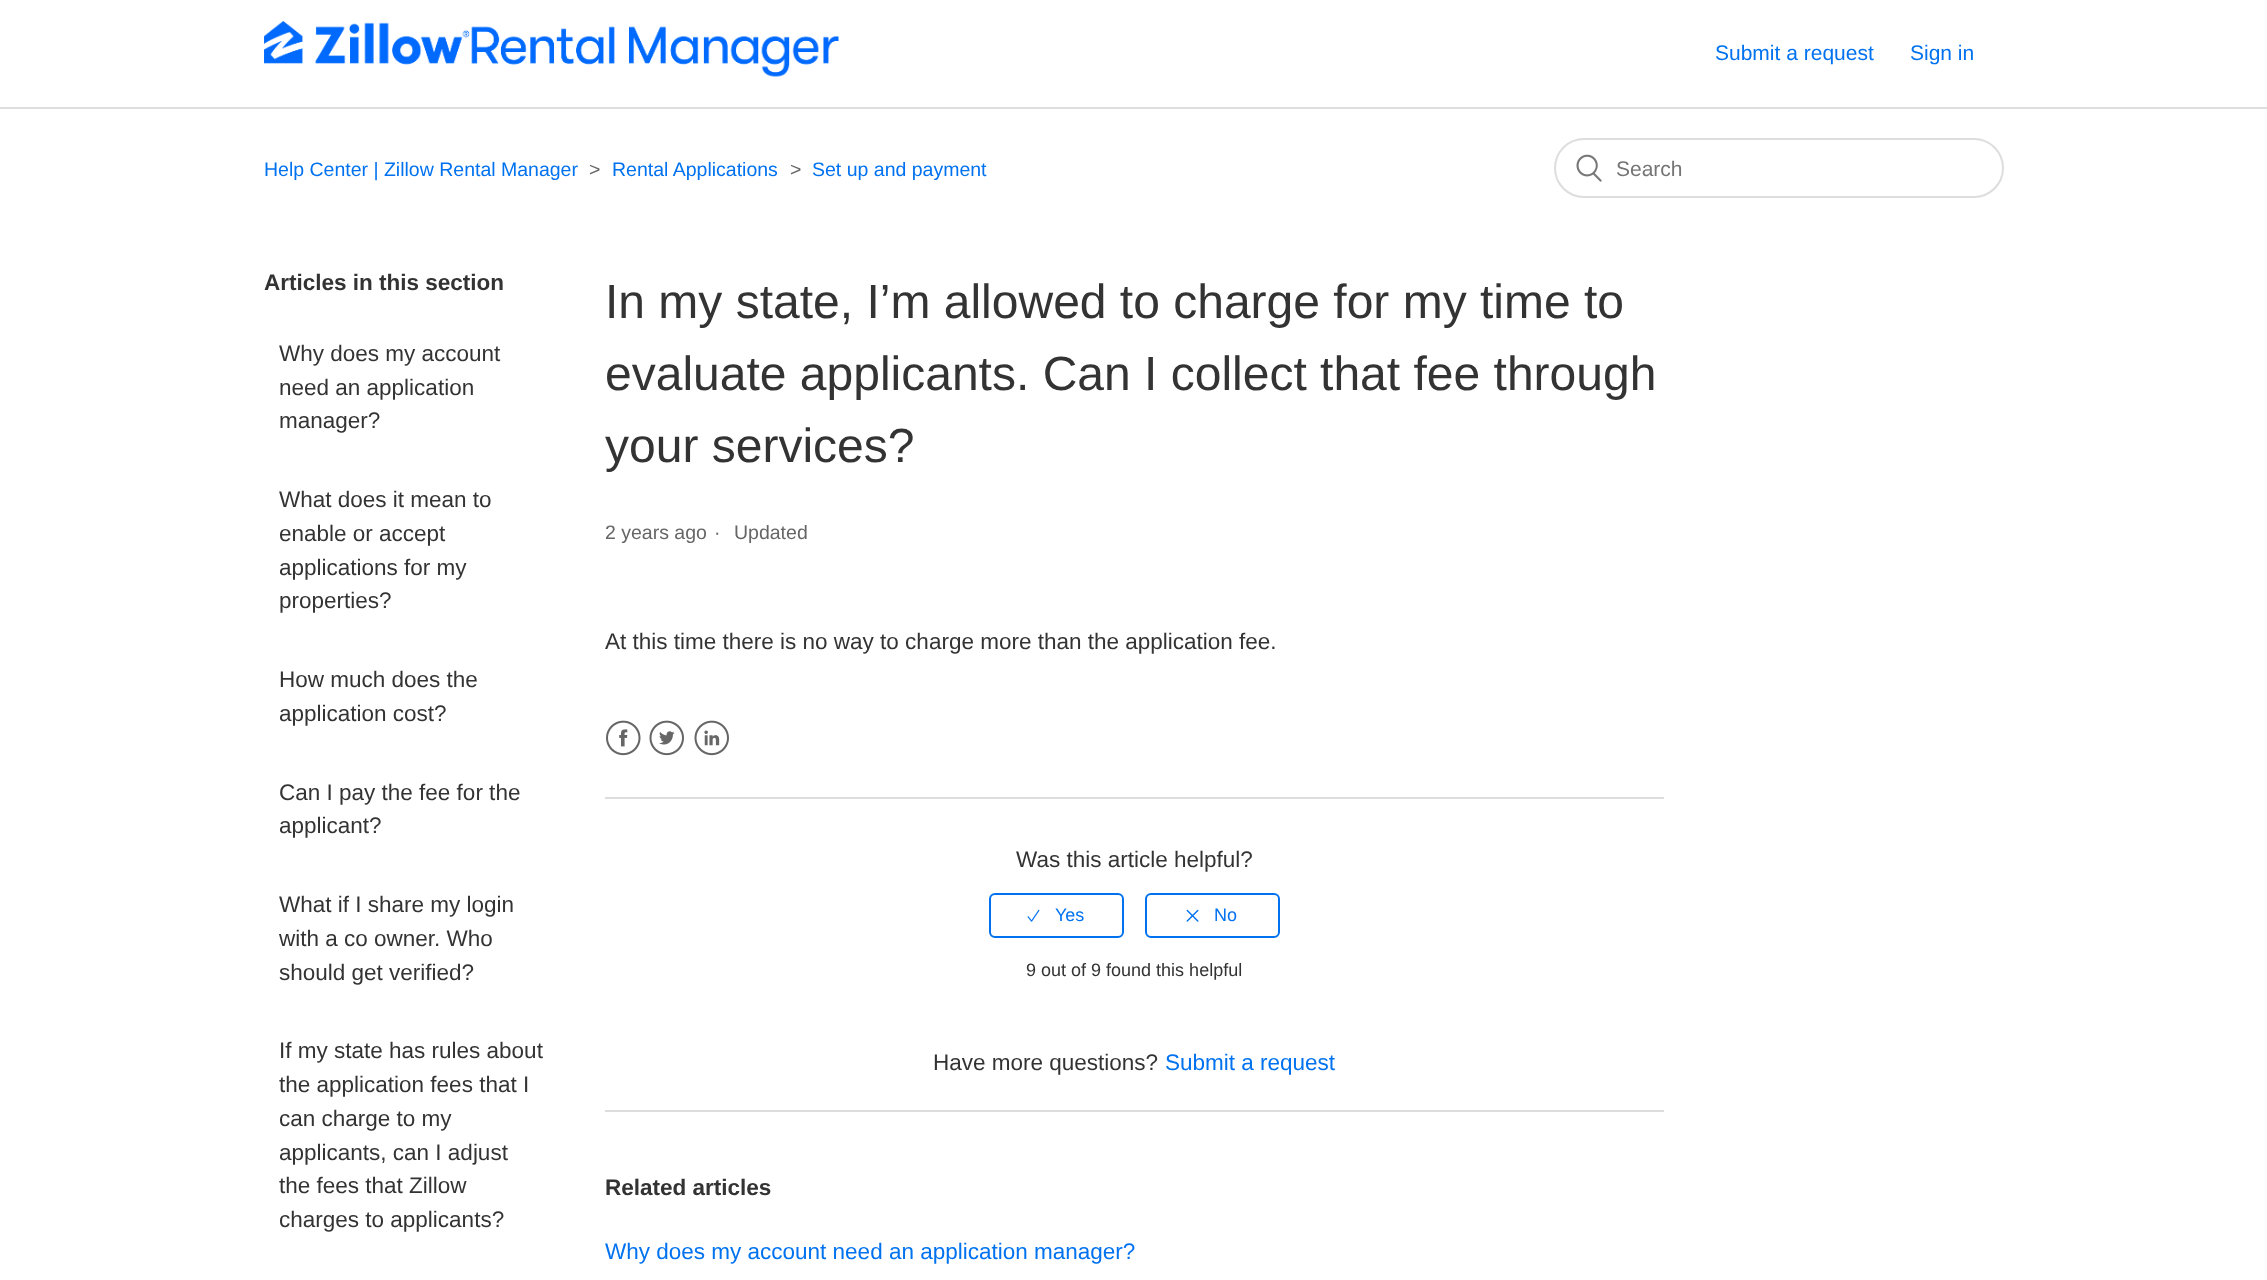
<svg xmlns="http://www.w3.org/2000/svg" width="2267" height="1280">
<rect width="100%" height="100%" fill="#fff"/>
<image x="264" y="21" width="575" height="56" href="media/1.png"/>
<text x="1715" y="60" style="font-family:Liberation Sans;font-size:21px;fill:#0072ef">Submit a request</text>
<text x="1910" y="60" style="font-family:Liberation Sans;font-size:21px;fill:#0072ef">Sign in</text>
<rect y="107" width="2267" height="2" fill="#ddd"/>
<text x="264" y="176" style="font-family:Liberation Sans;font-size:19.5px;fill:#0072ef">Help Center | Zillow Rental Manager</text>
<text x="589" y="176" style="font-family:Liberation Sans;font-size:19.5px;fill:#666">&gt;</text>
<text x="612" y="176" style="font-family:Liberation Sans;font-size:19.5px;fill:#0072ef">Rental Applications</text>
<text x="790" y="176" style="font-family:Liberation Sans;font-size:19.5px;fill:#666">&gt;</text>
<text x="812" y="176" style="font-family:Liberation Sans;font-size:19.5px;fill:#0072ef">Set up and payment</text>
<rect x="1555" y="139" width="448" height="58" rx="29" fill="none" stroke="#ddd" stroke-width="2"/>
<image x="1576" y="154" width="26" height="28" href="media/2.png"/>
<text x="1616" y="176" style="font-family:Liberation Sans;font-size:21px;fill:#757575">Search</text>
<text x="264" y="290" style="font-family:Liberation Sans;font-size:22.5px;font-weight:bold;fill:#333">Articles in this section</text>
<text x="279" y="361" style="font-family:Liberation Sans;font-size:22.5px;fill:#333">Why does my account</text>
<text x="279" y="395" style="font-family:Liberation Sans;font-size:22.5px;fill:#333">need an application</text>
<text x="279" y="428" style="font-family:Liberation Sans;font-size:22.5px;fill:#333">manager?</text>
<text x="279" y="507" style="font-family:Liberation Sans;font-size:22.5px;fill:#333">What does it mean to</text>
<text x="279" y="541" style="font-family:Liberation Sans;font-size:22.5px;fill:#333">enable or accept</text>
<text x="279" y="575" style="font-family:Liberation Sans;font-size:22.5px;fill:#333">applications for my</text>
<text x="279" y="608" style="font-family:Liberation Sans;font-size:22.5px;fill:#333">properties?</text>
<text x="279" y="687" style="font-family:Liberation Sans;font-size:22.5px;fill:#333">How much does the</text>
<text x="279" y="721" style="font-family:Liberation Sans;font-size:22.5px;fill:#333">application cost?</text>
<text x="279" y="800" style="font-family:Liberation Sans;font-size:22.5px;fill:#333">Can I pay the fee for the</text>
<text x="279" y="833" style="font-family:Liberation Sans;font-size:22.5px;fill:#333">applicant?</text>
<text x="279" y="912" style="font-family:Liberation Sans;font-size:22.5px;fill:#333">What if I share my login</text>
<text x="279" y="946" style="font-family:Liberation Sans;font-size:22.5px;fill:#333">with a co owner. Who</text>
<text x="279" y="980" style="font-family:Liberation Sans;font-size:22.5px;fill:#333">should get verified?</text>
<text x="279" y="1058" style="font-family:Liberation Sans;font-size:22.5px;fill:#333">If my state has rules about</text>
<text x="279" y="1092" style="font-family:Liberation Sans;font-size:22.5px;fill:#333">the application fees that I</text>
<text x="279" y="1126" style="font-family:Liberation Sans;font-size:22.5px;fill:#333">can charge to my</text>
<text x="279" y="1160" style="font-family:Liberation Sans;font-size:22.5px;fill:#333">applicants, can I adjust</text>
<text x="279" y="1193" style="font-family:Liberation Sans;font-size:22.5px;fill:#333">the fees that Zillow</text>
<text x="279" y="1227" style="font-family:Liberation Sans;font-size:22.5px;fill:#333">charges to applicants?</text>
<text x="605" y="318" style="font-family:Liberation Sans;font-size:48px;fill:#333">In my state, I’m allowed to charge for my time to</text>
<text x="605" y="390" style="font-family:Liberation Sans;font-size:48px;fill:#333">evaluate applicants. Can I collect that fee through</text>
<text x="605" y="462" style="font-family:Liberation Sans;font-size:48px;fill:#333">your services?</text>
<text x="605" y="539" style="font-family:Liberation Sans;font-size:19.5px;fill:#666">2 years ago</text>
<text x="714" y="539" style="font-family:Liberation Sans;font-size:19.5px;fill:#666">·</text>
<text x="734" y="539" style="font-family:Liberation Sans;font-size:19.5px;fill:#666">Updated</text>
<text x="605" y="649" style="font-family:Liberation Sans;font-size:22.5px;fill:#333">At this time there is no way to charge more than the application fee.</text>
<image x="606" y="720" width="35" height="36" href="media/3.png"/>
<image x="649" y="720" width="35" height="36" href="media/4.png"/>
<image x="694" y="720" width="35" height="36" href="media/5.png"/>
<rect x="605" y="797" width="1059" height="2" fill="#ddd"/>
<text x="1016" y="867" style="font-family:Liberation Sans;font-size:22.5px;fill:#333">Was this article helpful?</text>
<rect x="990" y="894" width="133" height="43" rx="5" fill="none" stroke="#0072ef" stroke-width="2"/>
<image x="1027" y="909" width="13" height="13" href="media/6.png"/>
<text x="1055" y="921" style="font-family:Liberation Sans;font-size:18px;fill:#0072ef">Yes</text>
<rect x="1146" y="894" width="133" height="43" rx="5" fill="none" stroke="#0072ef" stroke-width="2"/>
<image x="1186" y="909" width="13" height="13" href="media/7.png"/>
<text x="1214" y="921" style="font-family:Liberation Sans;font-size:18px;fill:#0072ef">No</text>
<text x="1026" y="976" style="font-family:Liberation Sans;font-size:18px;fill:#333">9 out of 9 found this helpful</text>
<text x="933" y="1070" style="font-family:Liberation Sans;font-size:22.5px;fill:#333">Have more questions?</text>
<text x="1165" y="1070" style="font-family:Liberation Sans;font-size:22.5px;fill:#0072ef">Submit a request</text>
<rect x="605" y="1110" width="1059" height="2" fill="#ddd"/>
<text x="605" y="1195" style="font-family:Liberation Sans;font-size:22.5px;font-weight:bold;fill:#333">Related articles</text>
<text x="605" y="1259" style="font-family:Liberation Sans;font-size:22.5px;fill:#0072ef">Why does my account need an application manager?</text>
</svg>
